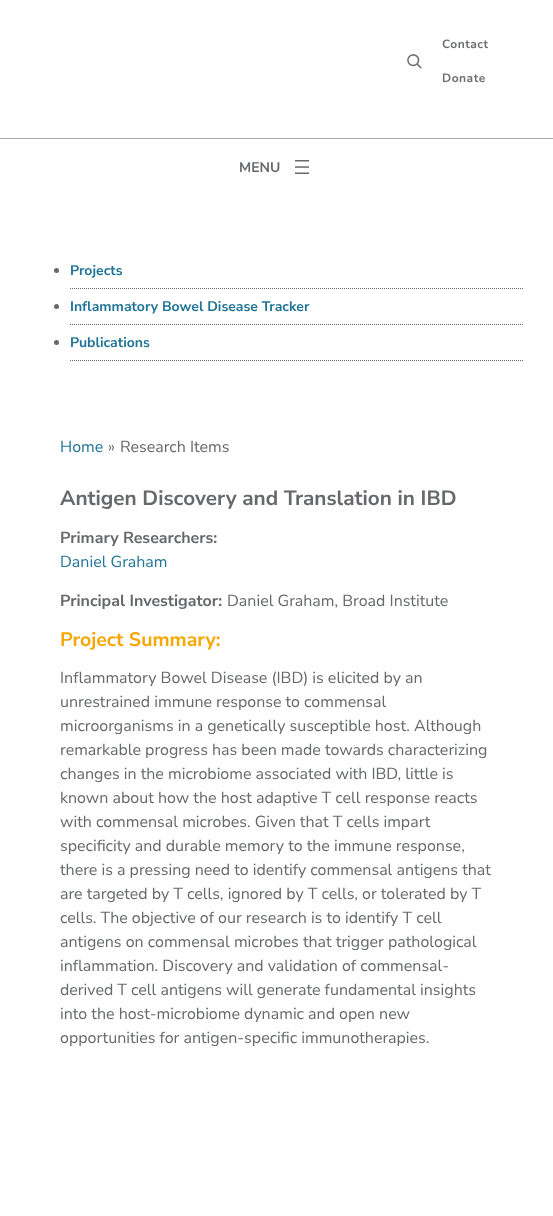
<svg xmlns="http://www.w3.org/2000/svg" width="553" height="1216">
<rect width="100%" height="100%" fill="#fff"/>
<image x="407" y="54" width="15" height="15" href="media/1.png"/>
<text x="442" y="48" style="font-family:Nunito Sans;font-size:12px;font-weight:bold;letter-spacing:0.5px;fill:#6d6e71">Contact</text>
<text x="442" y="82" style="font-family:Nunito Sans;font-size:12px;font-weight:bold;letter-spacing:0.5px;fill:#6d6e71">Donate</text>
<rect y="138" width="553" height="1" fill="#acacad"/>
<text x="239" y="172" style="font-family:Nunito Sans;font-size:14px;font-weight:bold;fill:#66686b">MENU</text>
<image x="295" y="160" width="14" height="14" href="media/2.png"/>
<path d="M70 288.5h453" fill="none" stroke="#66686b" stroke-dasharray="1 1"/>
<circle cx="56.5" cy="270.5" r="2.5" fill="#66686b"/>
<text x="70" y="275" style="font-family:Nunito Sans;font-size:14px;font-weight:bold;fill:#1f7497">Projects</text>
<path d="M70 324.5h453" fill="none" stroke="#66686b" stroke-dasharray="1 1"/>
<circle cx="56.5" cy="306.5" r="2.5" fill="#66686b"/>
<text x="70" y="311" style="font-family:Nunito Sans;font-size:14px;font-weight:bold;fill:#1f7497">Inflammatory Bowel Disease Tracker</text>
<path d="M70 360.5h453" fill="none" stroke="#66686b" stroke-dasharray="1 1"/>
<circle cx="56.5" cy="342.5" r="2.5" fill="#66686b"/>
<text x="70" y="347" style="font-family:Nunito Sans;font-size:14px;font-weight:bold;fill:#1f7497">Publications</text>
<text x="60" y="452" style="font-family:Nunito Sans;font-size:16px;fill:#1f7497">Home</text>
<text x="108" y="452" style="font-family:Nunito Sans;font-size:16px;fill:#6c757d">»</text>
<text x="120" y="452" style="font-family:Nunito Sans;font-size:16px;fill:#66686b">Research Items</text>
<text x="60" y="505" style="font-family:Nunito Sans;font-size:20.75px;font-weight:bold;fill:#66686b">Antigen Discovery and Translation in IBD</text>
<text x="60" y="543" style="font-family:Nunito Sans;font-size:16px;font-weight:bold;fill:#66686b">Primary Researchers:</text>
<text x="60" y="567" style="font-family:Nunito Sans;font-size:16px;fill:#1f7497">Daniel Graham</text>
<text x="60" y="606" style="font-family:Nunito Sans;font-size:16px;font-weight:bold;fill:#66686b">Principal Investigator:</text>
<text x="227" y="606" style="font-family:Nunito Sans;font-size:16px;fill:#66686b">Daniel Graham, Broad Institute</text>
<text x="60" y="646" style="font-family:Nunito Sans;font-size:19.5px;font-weight:bold;fill:#f6a704">Project Summary:</text>
<text x="60" y="683" style="font-family:Nunito Sans;font-size:16px;fill:#66686b">Inflammatory Bowel Disease (IBD) is elicited by an</text>
<text x="60" y="707" style="font-family:Nunito Sans;font-size:16px;fill:#66686b">unrestrained immune response to commensal</text>
<text x="60" y="731" style="font-family:Nunito Sans;font-size:16px;fill:#66686b">microorganisms in a genetically susceptible host. Although</text>
<text x="60" y="755" style="font-family:Nunito Sans;font-size:16px;fill:#66686b">remarkable progress has been made towards characterizing</text>
<text x="60" y="779" style="font-family:Nunito Sans;font-size:16px;fill:#66686b">changes in the microbiome associated with IBD, little is</text>
<text x="60" y="803" style="font-family:Nunito Sans;font-size:16px;fill:#66686b">known about how the host adaptive T cell response reacts</text>
<text x="60" y="827" style="font-family:Nunito Sans;font-size:16px;fill:#66686b">with commensal microbes. Given that T cells impart</text>
<text x="60" y="851" style="font-family:Nunito Sans;font-size:16px;fill:#66686b">specificity and durable memory to the immune response,</text>
<text x="60" y="875" style="font-family:Nunito Sans;font-size:16px;fill:#66686b">there is a pressing need to identify commensal antigens that</text>
<text x="60" y="899" style="font-family:Nunito Sans;font-size:16px;fill:#66686b">are targeted by T cells, ignored by T cells, or tolerated by T</text>
<text x="60" y="923" style="font-family:Nunito Sans;font-size:16px;fill:#66686b">cells. The objective of our research is to identify T cell</text>
<text x="60" y="947" style="font-family:Nunito Sans;font-size:16px;fill:#66686b">antigens on commensal microbes that trigger pathological</text>
<text x="60" y="971" style="font-family:Nunito Sans;font-size:16px;fill:#66686b">inflammation. Discovery and validation of commensal-</text>
<text x="60" y="995" style="font-family:Nunito Sans;font-size:16px;fill:#66686b">derived T cell antigens will generate fundamental insights</text>
<text x="60" y="1019" style="font-family:Nunito Sans;font-size:16px;fill:#66686b">into the host-microbiome dynamic and open new</text>
<text x="60" y="1043" style="font-family:Nunito Sans;font-size:16px;fill:#66686b">opportunities for antigen-specific immunotherapies.</text>
</svg>
